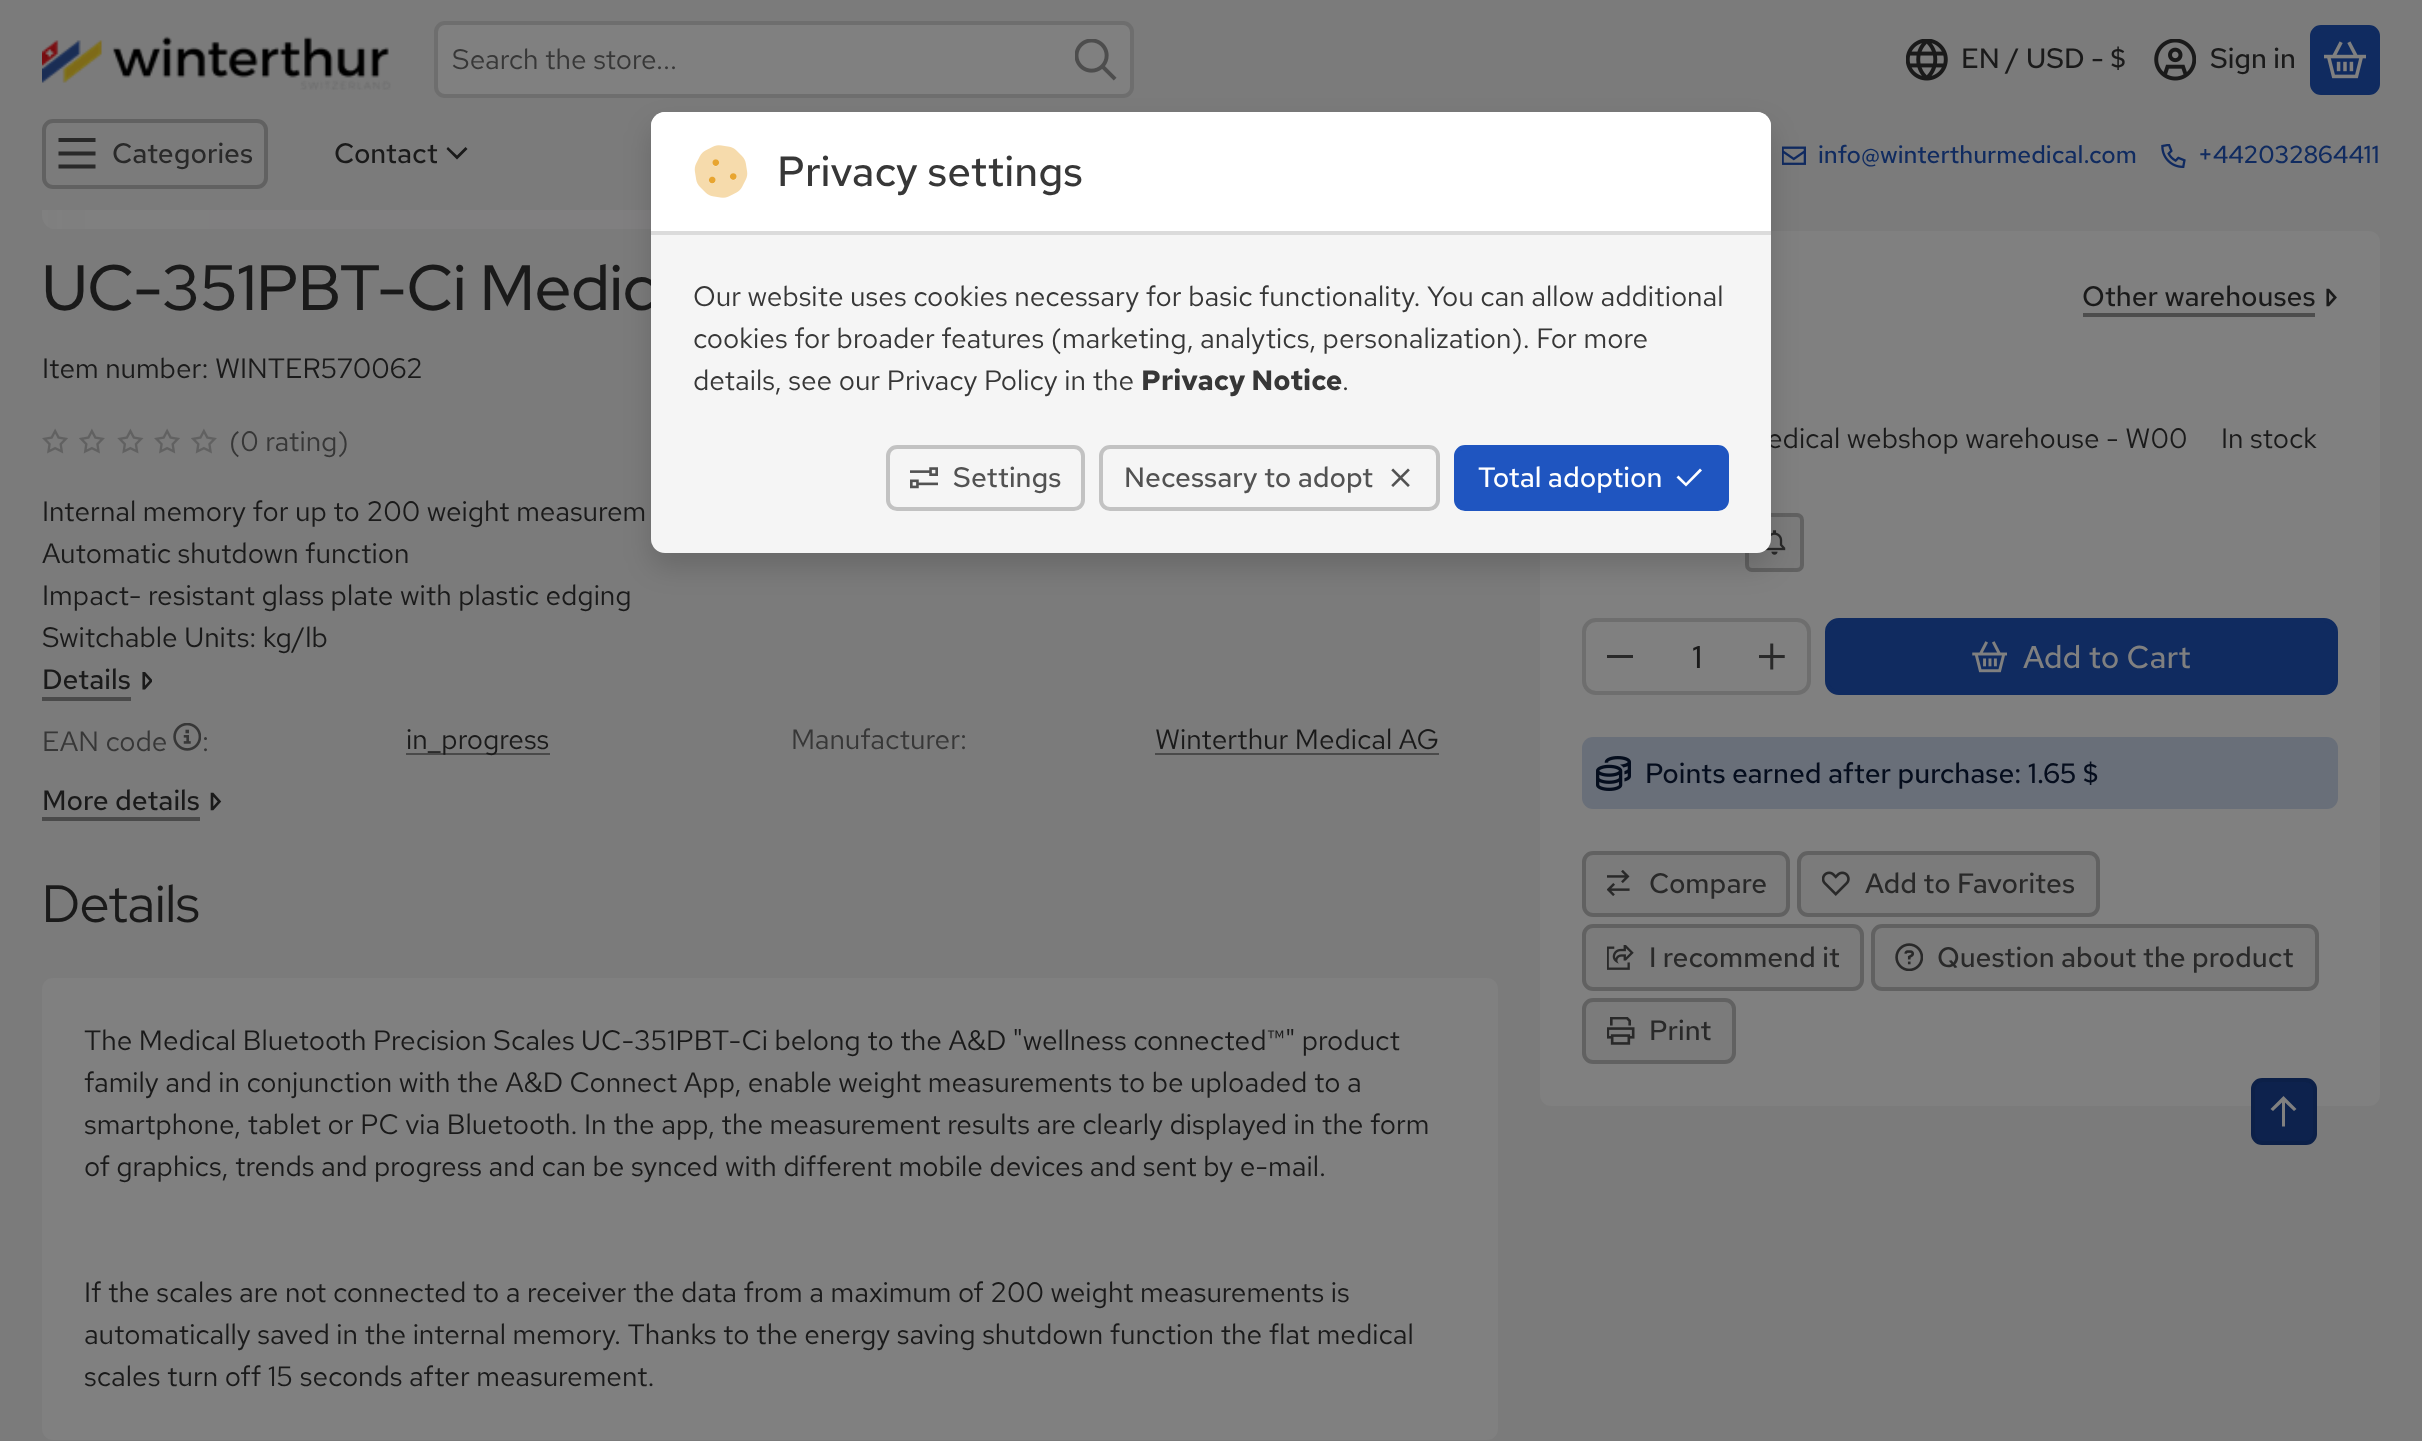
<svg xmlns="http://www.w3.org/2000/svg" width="2422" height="1441">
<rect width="100%" height="100%" fill="#7b7b7b"/>
<image x="42" y="36" width="349" height="54" href="media/1.png"/>
<rect x="436" y="23" width="696" height="73" rx="9" fill="#808080" stroke="#6e6e6e" stroke-width="4"/>
<text x="452" y="69" style="font-family:Red Hat Text;font-size:28px;fill:#373737">Search the store...</text>
<image x="1075" y="39" width="42" height="42" href="media/2.png"/>
<image x="1906" y="39" width="42" height="42" href="media/3.png"/>
<text x="1961" y="68" style="font-family:Red Hat Text;font-size:28px;font-weight:500;fill:#1a1a1a">EN / USD - $</text>
<image x="2154" y="39" width="42" height="42" href="media/4.png"/>
<text x="2210" y="68" style="font-family:Red Hat Text;font-size:28px;font-weight:500;fill:#1a1a1a">Sign in</text>
<rect x="2312" y="27" width="66" height="66" rx="9" fill="#102b60" stroke="#102b60" stroke-width="4"/>
<image x="2324" y="41" width="42" height="38" href="media/5.png"/>
<rect x="44" y="121" width="222" height="66" rx="9" fill="none" stroke="#616161" stroke-width="4"/>
<path d="M58.5 138h37v4h-37zm0 13.5h37v4h-37zm37 13v4h-37v-4z" fill="#292929"/>
<text x="112" y="163" style="font-family:Red Hat Text;font-size:28px;font-weight:500;fill:#292929">Categories</text>
<text x="334" y="163" style="font-family:Red Hat Text;font-size:28px;font-weight:500;fill:#1a1a1a">Contact</text>
<path d="M457 159.5l10.5-10.5l-2-2l-8.5 8.5l-9-8.5l-1.5 2z" fill="#1a1a1a"/>
<image x="1782" y="146" width="24" height="19" href="media/6.png"/>
<text x="1818" y="163" style="font-family:Red Hat Text;font-size:24.5px;font-weight:500;fill:#102b60">info@winterthurmedical.com</text>
<image x="2161" y="144" width="25" height="24" href="media/7.png"/>
<text x="2198" y="163" style="font-family:Red Hat Text;font-size:24.5px;font-weight:500;fill:#102b60">+442032864411</text>
<image x="42" y="210" width="609" height="19" href="media/11.png"/>
<rect x="1540" y="231" width="840" height="875" rx="11" fill="#808080"/>
<rect x="1747" y="515" width="55" height="55" rx="5" fill="#7b7b7b" stroke="#616161" stroke-width="4"/>
<image x="1764" y="530" width="22" height="25" href="media/19.png"/>
<rect x="651" y="126" width="1120" height="441" rx="14" fill="#00000026" filter="blur(14px)"/>
<text x="42" y="310" style="font-family:Red Hat Display;font-size:64.1px;font-weight:500;fill:#1a1a1a">UC-351PBT-Ci Medic</text>
<text x="1767" y="448" style="font-family:Red Hat Text;font-size:28px;fill:#1a1a1a">edical webshop warehouse - W00</text>
<rect x="651" y="112" width="1120" height="441" rx="14" fill="#f5f5f5"/>
<path d="M665 112h1092c7.5 0 14 6.5 14 14v109h-1120v-109c0-7.5 6.5-14 14-14z" fill="#fff"/>
<rect x="651" y="231" width="1120" height="4" fill="#dbdbdb"/>
<image x="694" y="145" width="54" height="53" href="media/8.png"/>
<text x="777" y="186" style="font-family:Red Hat Text;font-size:42px;font-weight:500;fill:#373737">Privacy settings</text>
<text x="693" y="306" style="font-family:Red Hat Text;font-size:28px;fill:#373737">Our website uses cookies necessary for basic functionality. You can allow additional</text>
<text x="693" y="348" style="font-family:Red Hat Text;font-size:28px;fill:#373737">cookies for broader features (marketing, analytics, personalization). For more</text>
<text x="693" y="390" style="font-family:Red Hat Text;font-size:28px;fill:#373737">details, see our Privacy Policy in the</text>
<text x="1141" y="390" style="font-family:Red Hat Text;font-size:28px;font-weight:bold;fill:#373737">Privacy Notice</text>
<text x="1342" y="390" style="font-family:Red Hat Text;font-size:28px;fill:#373737">.</text>
<rect x="888" y="447" width="195" height="62" rx="9" fill="none" stroke="#c2c2c2" stroke-width="4"/>
<image x="910" y="467" width="28" height="22" href="media/9.png"/>
<text x="953" y="487" style="font-family:Red Hat Text;font-size:28px;font-weight:500;fill:#525252">Settings</text>
<rect x="1101" y="447" width="337" height="62" rx="9" fill="none" stroke="#c2c2c2" stroke-width="4"/>
<text x="1124" y="487" style="font-family:Red Hat Text;font-size:28px;font-weight:500;fill:#525252">Necessary to adopt</text>
<image x="1391" y="468" width="19" height="19" href="media/10.png"/>
<rect x="1456" y="447" width="271" height="62" rx="9" fill="#1f55c0" stroke="#1f55c0" stroke-width="4"/>
<text x="1478" y="487" style="font-family:Red Hat Text;font-size:28px;font-weight:500;fill:#fff">Total adoption</text>
<path d="M1702 470.5l-16 16l-9.5-9l2-2l7.5 7.5l14-14.5z" fill="#fff"/>
<text x="42" y="378" style="font-family:Red Hat Text;font-size:28px;fill:#1a1a1a">Item number: WINTER570062</text>
<image x="42" y="428" width="26" height="26" href="media/12.png"/>
<image x="79" y="428" width="26" height="26" href="media/13.png"/>
<image x="117" y="428" width="27" height="26" href="media/14.png"/>
<image x="154" y="428" width="26" height="26" href="media/12.png"/>
<image x="191" y="428" width="26" height="26" href="media/13.png"/>
<text x="229" y="451" style="font-family:Red Hat Text;font-size:28px;fill:#373737">(0 rating)</text>
<text x="42" y="521" style="font-family:Red Hat Text;font-size:28px;fill:#1a1a1a">Internal memory for up to 200 weight measurem</text>
<text x="42" y="563" style="font-family:Red Hat Text;font-size:28px;fill:#1a1a1a">Automatic shutdown function</text>
<text x="42" y="605" style="font-family:Red Hat Text;font-size:28px;fill:#1a1a1a">Impact- resistant glass plate with plastic edging</text>
<text x="42" y="647" style="font-family:Red Hat Text;font-size:28px;fill:#1a1a1a">Switchable Units: kg/lb</text>
<text x="42" y="689" style="font-family:Red Hat Text;font-size:28px;font-weight:500;fill:#1a1a1a">Details</text>
<rect x="42" y="697" width="89" height="4" fill="#4a4a4a"/>
<image x="142" y="672" width="10" height="18" href="media/15.png"/>
<text x="42" y="751" style="font-family:Red Hat Text;font-size:28px;fill:#373737">EAN code</text>
<image x="173" y="723" width="28" height="28" href="media/16.png"/>
<text x="202" y="751" style="font-family:Red Hat Text;font-size:28px;fill:#373737">:</text>
<rect x="406" y="753" width="144" height="2" fill="#4a4a4a"/>
<text x="406" y="749" style="font-family:Red Hat Text;font-size:28px;fill:#1a1a1a">in_progress</text>
<text x="791" y="749" style="font-family:Red Hat Text;font-size:28px;fill:#373737">Manufacturer:</text>
<text x="1155" y="749" style="font-family:Red Hat Text;font-size:28px;fill:#1a1a1a">Winterthur Medical AG</text>
<rect x="1155" y="753" width="284" height="2" fill="#4a4a4a"/>
<text x="42" y="810" style="font-family:Red Hat Text;font-size:28px;font-weight:500;fill:#1a1a1a">More details</text>
<rect x="42" y="817" width="158" height="4" fill="#4a4a4a"/>
<image x="210" y="792" width="12" height="19" href="media/17.png"/>
<text x="2082" y="306" style="font-family:Red Hat Text;font-size:28px;font-weight:500;fill:#1a1a1a">Other warehouses</text>
<rect x="2083" y="313" width="232" height="4" fill="#4d4d4d"/>
<image x="2326" y="288" width="11" height="19" href="media/18.png"/>
<text x="2221" y="448" style="font-family:Red Hat Text;font-size:28px;fill:#1a1a1a">In stock</text>
<rect x="1584" y="620" width="225" height="73" rx="12" fill="none" stroke="#6e6e6e" stroke-width="4"/>
<rect x="1607" y="655" width="26" height="3" fill="#292929"/>
<text x="1692" y="668" style="font-family:Red Hat Text;font-size:31.5px;font-weight:500;fill:#1a1a1a">1</text>
<image x="1759" y="643" width="26" height="27" href="media/20.png"/>
<rect x="1827" y="620" width="509" height="73" rx="12" fill="#102b60" stroke="#102b60" stroke-width="4"/>
<image x="1972" y="641" width="35" height="32" href="media/21.png"/>
<text x="2023" y="668" style="font-family:Red Hat Text;font-size:31.5px;font-weight:500;fill:#808080">Add to Cart</text>
<rect x="1582" y="737" width="756" height="72" rx="11" fill="#696f79"/>
<image x="1596" y="756" width="35" height="35" href="media/22.png"/>
<text x="1645" y="783" style="font-family:Red Hat Text;font-size:28px;font-weight:500;fill:#050d1d">Points earned after purchase: 1.65 $</text>
<rect x="1584" y="853" width="204" height="62" rx="9" fill="#7b7b7b" stroke="#616161" stroke-width="4"/>
<image x="1607" y="870" width="23" height="26" href="media/23.png"/>
<text x="1649" y="893" style="font-family:Red Hat Text;font-size:28px;font-weight:500;fill:#292929">Compare</text>
<rect x="1799" y="853" width="299" height="62" rx="9" fill="#7b7b7b" stroke="#616161" stroke-width="4"/>
<image x="1822" y="871" width="28" height="25" href="media/24.png"/>
<text x="1865" y="893" style="font-family:Red Hat Text;font-size:28px;font-weight:500;fill:#292929">Add to Favorites</text>
<rect x="1584" y="926" width="278" height="63" rx="9" fill="#7b7b7b" stroke="#616161" stroke-width="4"/>
<image x="1607" y="945" width="27" height="25" href="media/25.png"/>
<text x="1649" y="967" style="font-family:Red Hat Text;font-size:28px;font-weight:500;fill:#292929">I recommend it</text>
<rect x="1873" y="926" width="444" height="63" rx="9" fill="#7b7b7b" stroke="#616161" stroke-width="4"/>
<image x="1895" y="943" width="28" height="28" href="media/26.png"/>
<text x="1937" y="967" style="font-family:Red Hat Text;font-size:28px;font-weight:500;fill:#292929">Question about the product</text>
<rect x="1584" y="1000" width="150" height="62" rx="9" fill="#7b7b7b" stroke="#616161" stroke-width="4"/>
<image x="1607" y="1017" width="28" height="28" href="media/27.png"/>
<text x="1649" y="1040" style="font-family:Red Hat Text;font-size:28px;font-weight:500;fill:#292929">Print</text>
<text x="42" y="922" style="font-family:Red Hat Display;font-size:52.5px;fill:#1a1a1a">Details</text>
<rect x="42" y="978" width="1456" height="462" rx="11" fill="#808080"/>
<text x="84" y="1050" style="font-family:Red Hat Text;font-size:28px;fill:#1a1a1a">The Medical Bluetooth Precision Scales UC-351PBT-Ci belong to the A&amp;D "wellness connected™" product</text>
<text x="84" y="1092" style="font-family:Red Hat Text;font-size:28px;fill:#1a1a1a">family and in conjunction with the A&amp;D Connect App, enable weight measurements to be uploaded to a</text>
<text x="84" y="1134" style="font-family:Red Hat Text;font-size:28px;fill:#1a1a1a">smartphone, tablet or PC via Bluetooth. In the app, the measurement results are clearly displayed in the form</text>
<text x="84" y="1176" style="font-family:Red Hat Text;font-size:28px;fill:#1a1a1a">of graphics, trends and progress and can be synced with different mobile devices and sent by e-mail.</text>
<text x="84" y="1302" style="font-family:Red Hat Text;font-size:28px;fill:#1a1a1a">If the scales are not connected to a receiver the data from a maximum of 200 weight measurements is</text>
<text x="84" y="1344" style="font-family:Red Hat Text;font-size:28px;fill:#1a1a1a">automatically saved in the internal memory. Thanks to the energy saving shutdown function the flat medical</text>
<text x="84" y="1386" style="font-family:Red Hat Text;font-size:28px;fill:#1a1a1a">scales turn off 15 seconds after measurement.</text>
<rect x="2253" y="1080" width="62" height="63" rx="9" fill="#0d224d" stroke="#0c2048" stroke-width="4"/>
<path d="M2284.5 1097l-1-1l-13 13l2.5 2l9-8.5v24h3v-24l9 8.5l2.5-2z" fill="#808080"/>
</svg>
